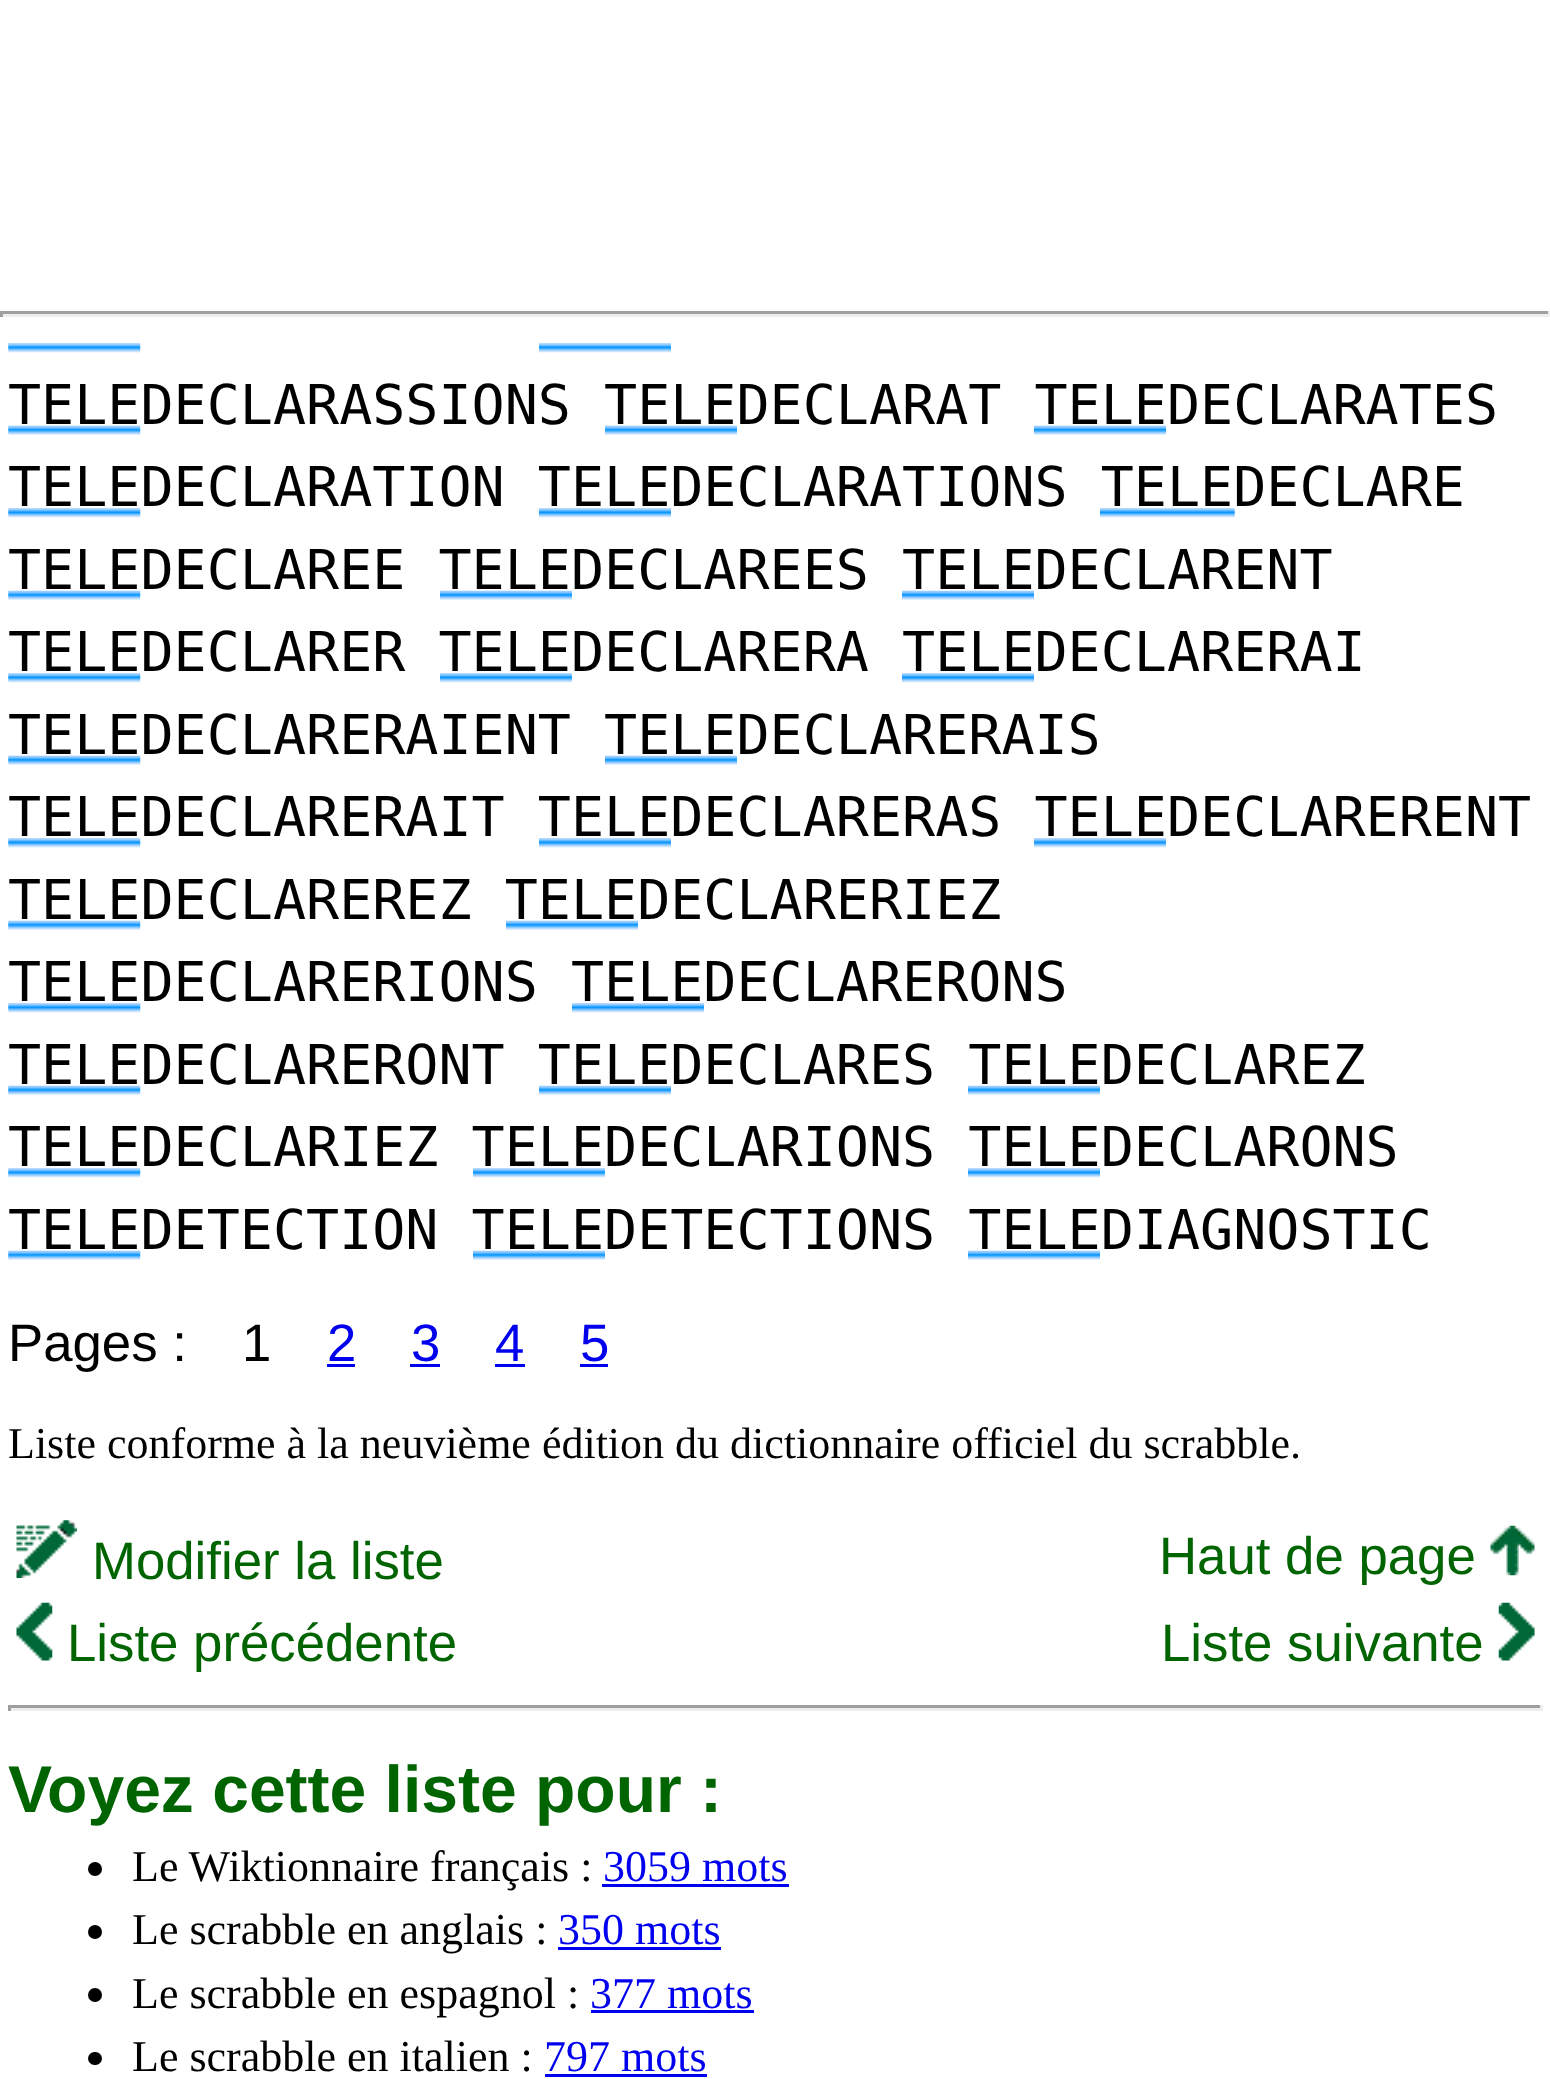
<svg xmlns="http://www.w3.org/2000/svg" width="1550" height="2079">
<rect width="100%" height="100%" fill="#fff"/>
<rect y="311" width="1550" height="3" fill="#9f9f9f"/>
<rect x="1548" y="311" width="2" height="6" fill="#eee"/>
<rect y="314" width="1550" height="3" fill="#eee"/>
<rect y="311" width="3" height="6" fill="#9f9f9f"/>
<image x="8" y="343" width="133" height="10" href="media/1.png"/>
<image x="539" y="343" width="132" height="10" href="media/2.png"/>
<text x="8" y="424" style="font-family:DejaVu Sans Mono;font-size:55px;fill:#000">TELEDECLARASSIONS TELEDECLARAT TELEDECLARATES</text>
<image x="8" y="425" width="133" height="10" href="media/3.png"/>
<image x="605" y="425" width="132" height="10" href="media/4.png"/>
<image x="1034" y="425" width="132" height="10" href="media/4.png"/>
<text x="8" y="506" style="font-family:DejaVu Sans Mono;font-size:55px;fill:#000">TELEDECLARATION TELEDECLARATIONS TELEDECLARE</text>
<image x="8" y="508" width="133" height="10" href="media/1.png"/>
<image x="539" y="508" width="132" height="10" href="media/2.png"/>
<image x="1100" y="508" width="135" height="10" href="media/5.png"/>
<text x="8" y="589" style="font-family:DejaVu Sans Mono;font-size:55px;fill:#000">TELEDECLAREE TELEDECLAREES TELEDECLARENT</text>
<image x="8" y="590" width="133" height="10" href="media/6.png"/>
<image x="440" y="590" width="132" height="10" href="media/7.png"/>
<image x="902" y="590" width="132" height="10" href="media/7.png"/>
<text x="8" y="671" style="font-family:DejaVu Sans Mono;font-size:55px;fill:#000">TELEDECLARER TELEDECLARERA TELEDECLARERAI</text>
<image x="8" y="673" width="133" height="10" href="media/1.png"/>
<image x="440" y="673" width="132" height="10" href="media/2.png"/>
<image x="902" y="673" width="132" height="10" href="media/2.png"/>
<text x="8" y="754" style="font-family:DejaVu Sans Mono;font-size:55px;fill:#000">TELEDECLARERAIENT TELEDECLARERAIS</text>
<image x="8" y="755" width="133" height="10" href="media/6.png"/>
<image x="605" y="755" width="132" height="10" href="media/7.png"/>
<text x="8" y="836" style="font-family:DejaVu Sans Mono;font-size:55px;fill:#000">TELEDECLARERAIT TELEDECLARERAS TELEDECLARERENT</text>
<image x="8" y="838" width="133" height="10" href="media/1.png"/>
<image x="539" y="838" width="132" height="10" href="media/2.png"/>
<image x="1034" y="838" width="132" height="10" href="media/2.png"/>
<text x="8" y="919" style="font-family:DejaVu Sans Mono;font-size:55px;fill:#000">TELEDECLAREREZ TELEDECLARERIEZ</text>
<image x="8" y="920" width="133" height="10" href="media/3.png"/>
<image x="506" y="920" width="132" height="10" href="media/4.png"/>
<text x="8" y="1001" style="font-family:DejaVu Sans Mono;font-size:55px;fill:#000">TELEDECLARERIONS TELEDECLARERONS</text>
<image x="8" y="1003" width="133" height="10" href="media/8.png"/>
<image x="572" y="1003" width="132" height="10" href="media/9.png"/>
<text x="8" y="1084" style="font-family:DejaVu Sans Mono;font-size:55px;fill:#000">TELEDECLARERONT TELEDECLARES TELEDECLAREZ</text>
<image x="8" y="1085" width="133" height="10" href="media/3.png"/>
<image x="539" y="1085" width="132" height="10" href="media/4.png"/>
<image x="968" y="1085" width="132" height="10" href="media/4.png"/>
<text x="8" y="1166" style="font-family:DejaVu Sans Mono;font-size:55px;fill:#000">TELEDECLARIEZ TELEDECLARIONS TELEDECLARONS</text>
<image x="8" y="1168" width="133" height="10" href="media/1.png"/>
<image x="473" y="1168" width="132" height="10" href="media/2.png"/>
<image x="968" y="1168" width="132" height="10" href="media/2.png"/>
<text x="8" y="1249" style="font-family:DejaVu Sans Mono;font-size:55px;fill:#000">TELEDETECTION TELEDETECTIONS TELEDIAGNOSTIC</text>
<image x="8" y="1250" width="133" height="10" href="media/3.png"/>
<image x="473" y="1250" width="132" height="10" href="media/4.png"/>
<image x="968" y="1250" width="132" height="10" href="media/4.png"/>
<text x="8" y="1361" style="font-family:Liberation Sans;font-size:52.75px;fill:#000">Pages :</text>
<text x="242" y="1361" style="font-family:Liberation Sans;font-size:52.75px;fill:#000">1</text>
<text x="327" y="1361" style="font-family:Liberation Sans;font-size:52.75px;fill:#00e">2</text>
<rect x="327" y="1364" width="28" height="3" fill="#00e"/>
<text x="411" y="1361" style="font-family:Liberation Sans;font-size:52.75px;fill:#00e">3</text>
<rect x="410" y="1364" width="30" height="3" fill="#00e"/>
<text x="495" y="1361" style="font-family:Liberation Sans;font-size:52.75px;fill:#00e">4</text>
<rect x="495" y="1364" width="30" height="3" fill="#00e"/>
<text x="580" y="1361" style="font-family:Liberation Sans;font-size:52.75px;fill:#00e">5</text>
<rect x="580" y="1364" width="28" height="3" fill="#00e"/>
<text x="8" y="1458" style="font-family:Liberation Serif;font-size:44px;fill:#000">Liste conforme à la neuvième édition du dictionnaire officiel du scrabble.</text>
<image x="16" y="1520" width="61" height="58" href="media/10.png"/>
<text x="92" y="1579" style="font-family:Liberation Sans;font-size:52.75px;fill:#006400">Modifier la liste</text>
<text x="1159" y="1574" style="font-family:Liberation Sans;font-size:52.75px;fill:#006400">Haut de page</text>
<image x="1490" y="1525" width="45" height="51" href="media/11.png"/>
<image x="16" y="1602" width="37" height="59" href="media/12.png"/>
<text x="67" y="1661" style="font-family:Liberation Sans;font-size:52.75px;fill:#006400">Liste précédente</text>
<text x="1161" y="1661" style="font-family:Liberation Sans;font-size:52.75px;fill:#006400">Liste suivante</text>
<image x="1498" y="1602" width="37" height="59" href="media/13.png"/>
<rect x="8" y="1705" width="1535" height="3" fill="#9f9f9f"/>
<rect x="1540" y="1705" width="3" height="6" fill="#eee"/>
<rect x="8" y="1708" width="1535" height="3" fill="#eee"/>
<rect x="8" y="1705" width="3" height="6" fill="#9f9f9f"/>
<text x="8" y="1812" style="font-family:Liberation Sans;font-size:66px;font-weight:bold;fill:#006400">Voyez cette liste pour :</text>
<circle cx="95" cy="1869" r="7" fill="#000"/>
<text x="132" y="1881" style="font-family:Liberation Serif;font-size:44px;fill:#000">Le Wiktionnaire français :</text>
<text x="603" y="1881" style="font-family:Liberation Serif;font-size:44px;fill:#00e">3059 mots</text>
<rect x="602" y="1884" width="187" height="3" fill="#00e"/>
<circle cx="95" cy="1932" r="7" fill="#000"/>
<text x="132" y="1944" style="font-family:Liberation Serif;font-size:44px;fill:#000">Le scrabble en anglais :</text>
<text x="558" y="1944" style="font-family:Liberation Serif;font-size:44px;fill:#00e">350 mots</text>
<rect x="558" y="1947" width="163" height="3" fill="#00e"/>
<circle cx="95" cy="1995" r="7" fill="#000"/>
<text x="132" y="2008" style="font-family:Liberation Serif;font-size:44px;fill:#000">Le scrabble en espagnol :</text>
<text x="590" y="2008" style="font-family:Liberation Serif;font-size:44px;fill:#00e">377 mots</text>
<rect x="591" y="2010" width="163" height="3" fill="#00e"/>
<rect x="88" y="2052" width="14" height="13" rx="6.5" fill="#000"/>
<text x="132" y="2071" style="font-family:Liberation Serif;font-size:44px;fill:#000">Le scrabble en italien :</text>
<text x="544" y="2071" style="font-family:Liberation Serif;font-size:44px;fill:#00e">797 mots</text>
<rect x="545" y="2074" width="162" height="3" fill="#00e"/>
</svg>
